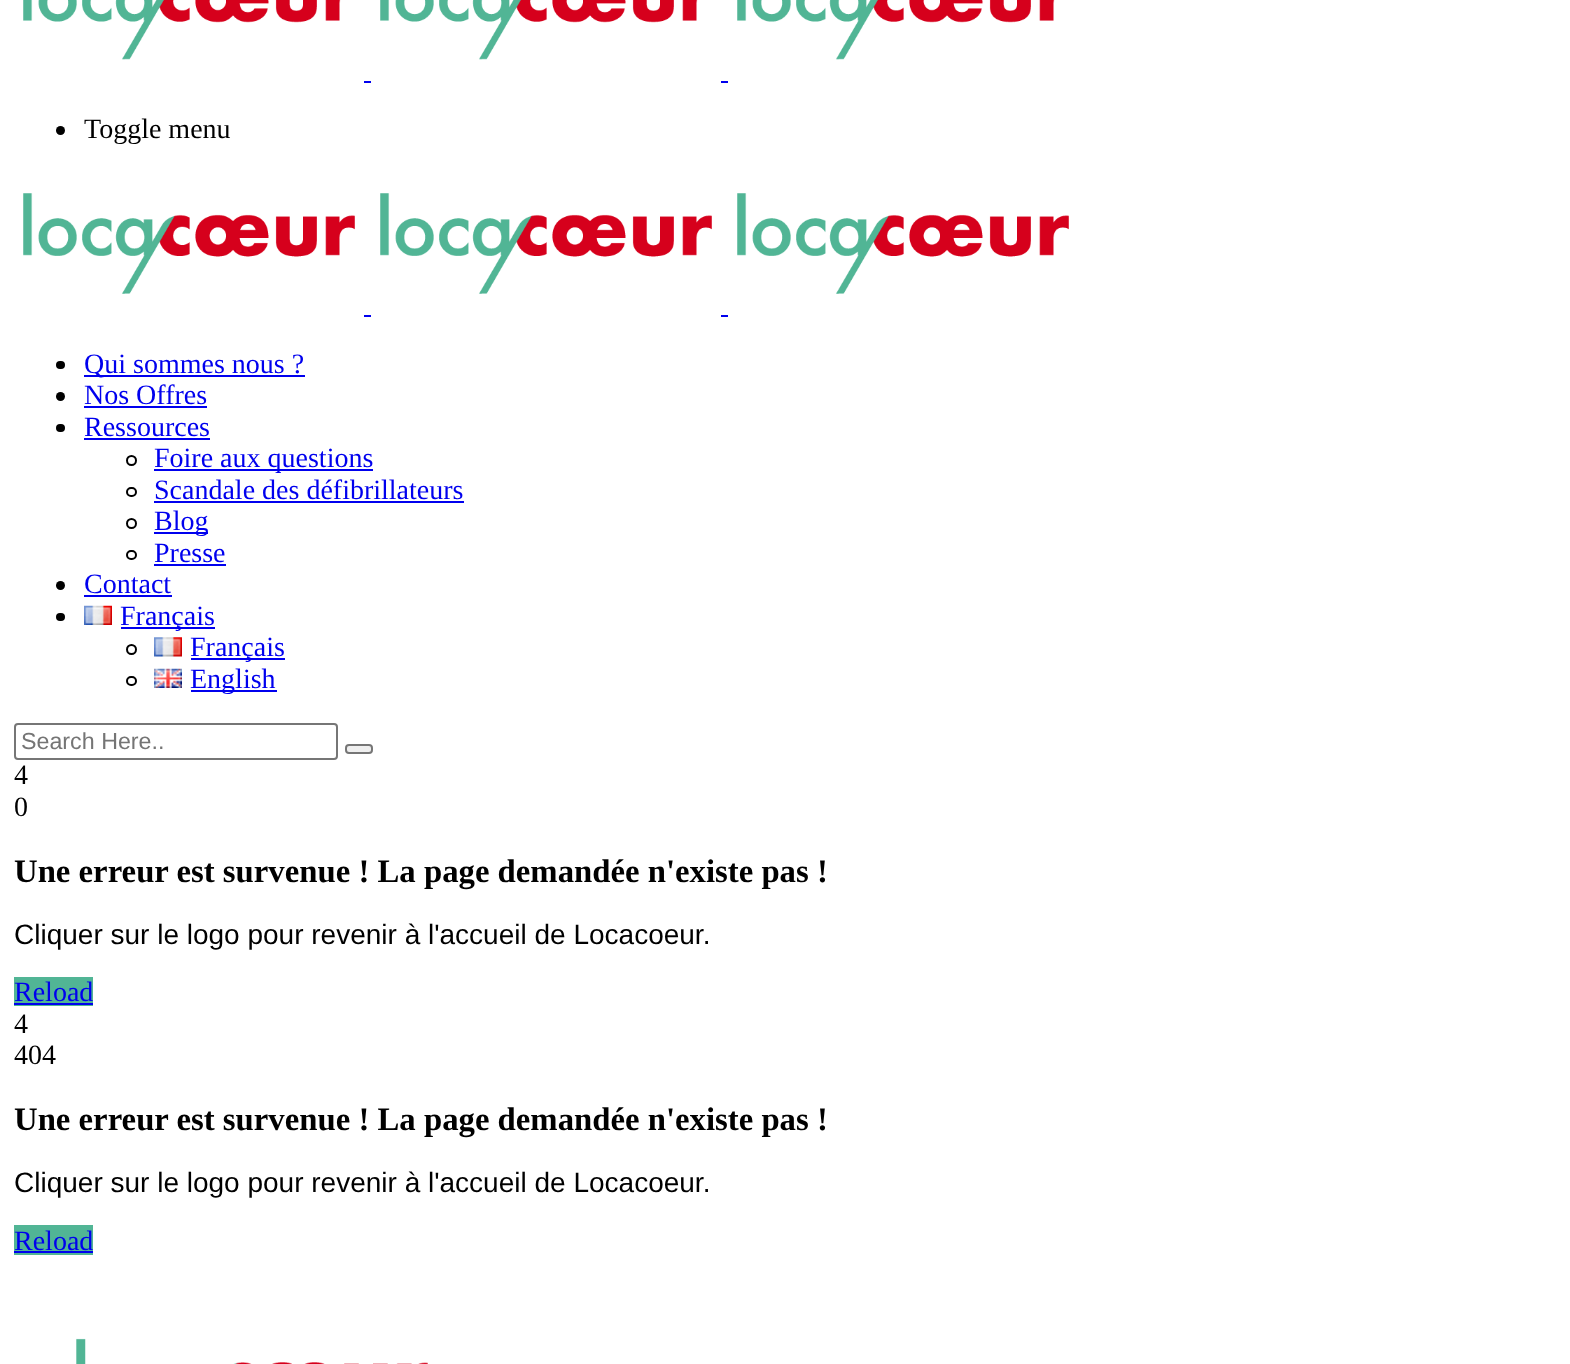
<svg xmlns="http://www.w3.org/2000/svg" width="1570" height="1364">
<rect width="100%" height="100%" fill="#fff"/>
<image x="23" y="0" width="318" height="60" href="media/1.png"/>
<image x="380" y="0" width="318" height="60" href="media/2.png"/>
<image x="737" y="0" width="318" height="60" href="media/3.png"/>
<rect x="364" y="81" width="7" height="2" fill="#00e"/>
<rect x="721" y="81" width="7" height="2" fill="#00e"/>
<circle cx="60.5" cy="130.5" r="4.5" fill="#000"/>
<text x="84" y="138" style="font-family:Liberation Serif;font-size:28px;fill:#000">Toggle menu</text>
<image x="23" y="193" width="332" height="101" href="media/4.png"/>
<image x="380" y="193" width="332" height="101" href="media/5.png"/>
<image x="737" y="193" width="332" height="101" href="media/6.png"/>
<rect x="364" y="315" width="7" height="2" fill="#00e"/>
<rect x="721" y="315" width="7" height="2" fill="#00e"/>
<rect x="56" y="361" width="9" height="8" rx="4" fill="#000"/>
<rect x="84" y="375" width="221" height="2" fill="#00e"/>
<text x="84" y="373" style="font-family:Liberation Serif;font-size:28px;fill:#00e">Qui sommes nous ?</text>
<circle cx="60.5" cy="396.5" r="4.5" fill="#000"/>
<text x="84" y="404" style="font-family:Liberation Serif;font-size:28px;fill:#00e">Nos Offres</text>
<rect x="84" y="406" width="123" height="2" fill="#00e"/>
<rect x="56" y="424" width="9" height="8" rx="4" fill="#000"/>
<text x="84" y="436" style="font-family:Liberation Serif;font-size:28px;fill:#00e">Ressources</text>
<rect x="84" y="438" width="126" height="2" fill="#00e"/>
<circle cx="131.5" cy="460.5" r="4.5" fill="none" stroke="#000" stroke-width="2"/>
<rect x="154" y="469" width="219" height="2" fill="#00e"/>
<text x="154" y="467" style="font-family:Liberation Serif;font-size:28px;fill:#00e">Foire aux questions</text>
<rect x="127" y="488" width="9" height="8" rx="4" fill="none" stroke="#000" stroke-width="2"/>
<text x="154" y="499" style="font-family:Liberation Serif;font-size:28px;fill:#00e">Scandale des défibrillateurs</text>
<rect x="154" y="501" width="310" height="2" fill="#00e"/>
<circle cx="131.5" cy="523.5" r="4.5" fill="none" stroke="#000" stroke-width="2"/>
<rect x="154" y="532" width="54" height="2" fill="#00e"/>
<text x="154" y="530" style="font-family:Liberation Serif;font-size:28px;fill:#00e">Blog</text>
<rect x="127" y="551" width="9" height="8" rx="4" fill="none" stroke="#000" stroke-width="2"/>
<text x="154" y="562" style="font-family:Liberation Serif;font-size:28px;fill:#00e">Presse</text>
<rect x="154" y="564" width="72" height="2" fill="#00e"/>
<circle cx="60.5" cy="585.5" r="4.5" fill="#000"/>
<text x="84" y="593" style="font-family:Liberation Serif;font-size:28px;fill:#00e">Contact</text>
<rect x="84" y="595" width="88" height="2" fill="#00e"/>
<rect x="56" y="613" width="9" height="8" rx="4" fill="#000"/>
<image x="84" y="605" width="28" height="20" href="media/7.png"/>
<rect x="121" y="627" width="94" height="2" fill="#00e"/>
<text x="120" y="625" style="font-family:Liberation Serif;font-size:28px;fill:#00e">Français</text>
<circle cx="131.5" cy="649.5" r="4.5" fill="none" stroke="#000" stroke-width="2"/>
<image x="154" y="637" width="28" height="20" href="media/8.png"/>
<rect x="191" y="658" width="94" height="2" fill="#00e"/>
<text x="190" y="656" style="font-family:Liberation Serif;font-size:28px;fill:#00e">Français</text>
<rect x="127" y="677" width="9" height="8" rx="4" fill="none" stroke="#000" stroke-width="2"/>
<image x="154" y="668" width="28" height="20" href="media/9.png"/>
<rect x="191" y="690" width="86" height="2" fill="#00e"/>
<text x="190" y="688" style="font-family:Liberation Serif;font-size:28px;fill:#00e">English</text>
<rect x="15" y="724" width="322" height="35" rx="3" fill="none" stroke="#767676" stroke-width="2"/>
<text x="21" y="749" style="font-family:Liberation Sans;font-size:23.25px;fill:#757575">Search Here..</text>
<rect x="346" y="745" width="26" height="8" rx="3" fill="#efefef" stroke="#767676" stroke-width="2"/>
<text x="14" y="784" style="font-family:Liberation Serif;font-size:28px;fill:#000">4</text>
<text x="14" y="816" style="font-family:Liberation Serif;font-size:28px;fill:#000">0</text>
<text x="14" y="882" style="font-family:Liberation Serif;font-size:32.75px;font-weight:bold;fill:#000">Une erreur est survenue ! La page demandée n'existe pas !</text>
<text x="14" y="944" style="font-family:Liberation Sans;font-size:28px;fill:#000">Cliquer sur le logo pour revenir à l'accueil de Locacoeur.</text>
<rect x="14" y="977" width="79" height="29" fill="#51b595"/>
<text x="14" y="1001" style="font-family:Liberation Serif;font-size:28px;fill:#00e">Reload</text>
<rect x="14" y="1003" width="79" height="2" fill="#00e"/>
<text x="14" y="1033" style="font-family:Liberation Serif;font-size:28px;fill:#000">4</text>
<text x="14" y="1064" style="font-family:Liberation Serif;font-size:28px;fill:#000">404</text>
<text x="14" y="1130" style="font-family:Liberation Serif;font-size:32.75px;font-weight:bold;fill:#000">Une erreur est survenue ! La page demandée n'existe pas !</text>
<text x="14" y="1192" style="font-family:Liberation Sans;font-size:28px;fill:#000">Cliquer sur le logo pour revenir à l'accueil de Locacoeur.</text>
<rect x="14" y="1225" width="79" height="30" fill="#51b595"/>
<text x="14" y="1250" style="font-family:Liberation Serif;font-size:28px;fill:#00e">Reload</text>
<rect x="14" y="1251" width="79" height="2" fill="#00e"/>
<image x="76" y="1338" width="352" height="26" href="media/10.png"/>
</svg>
